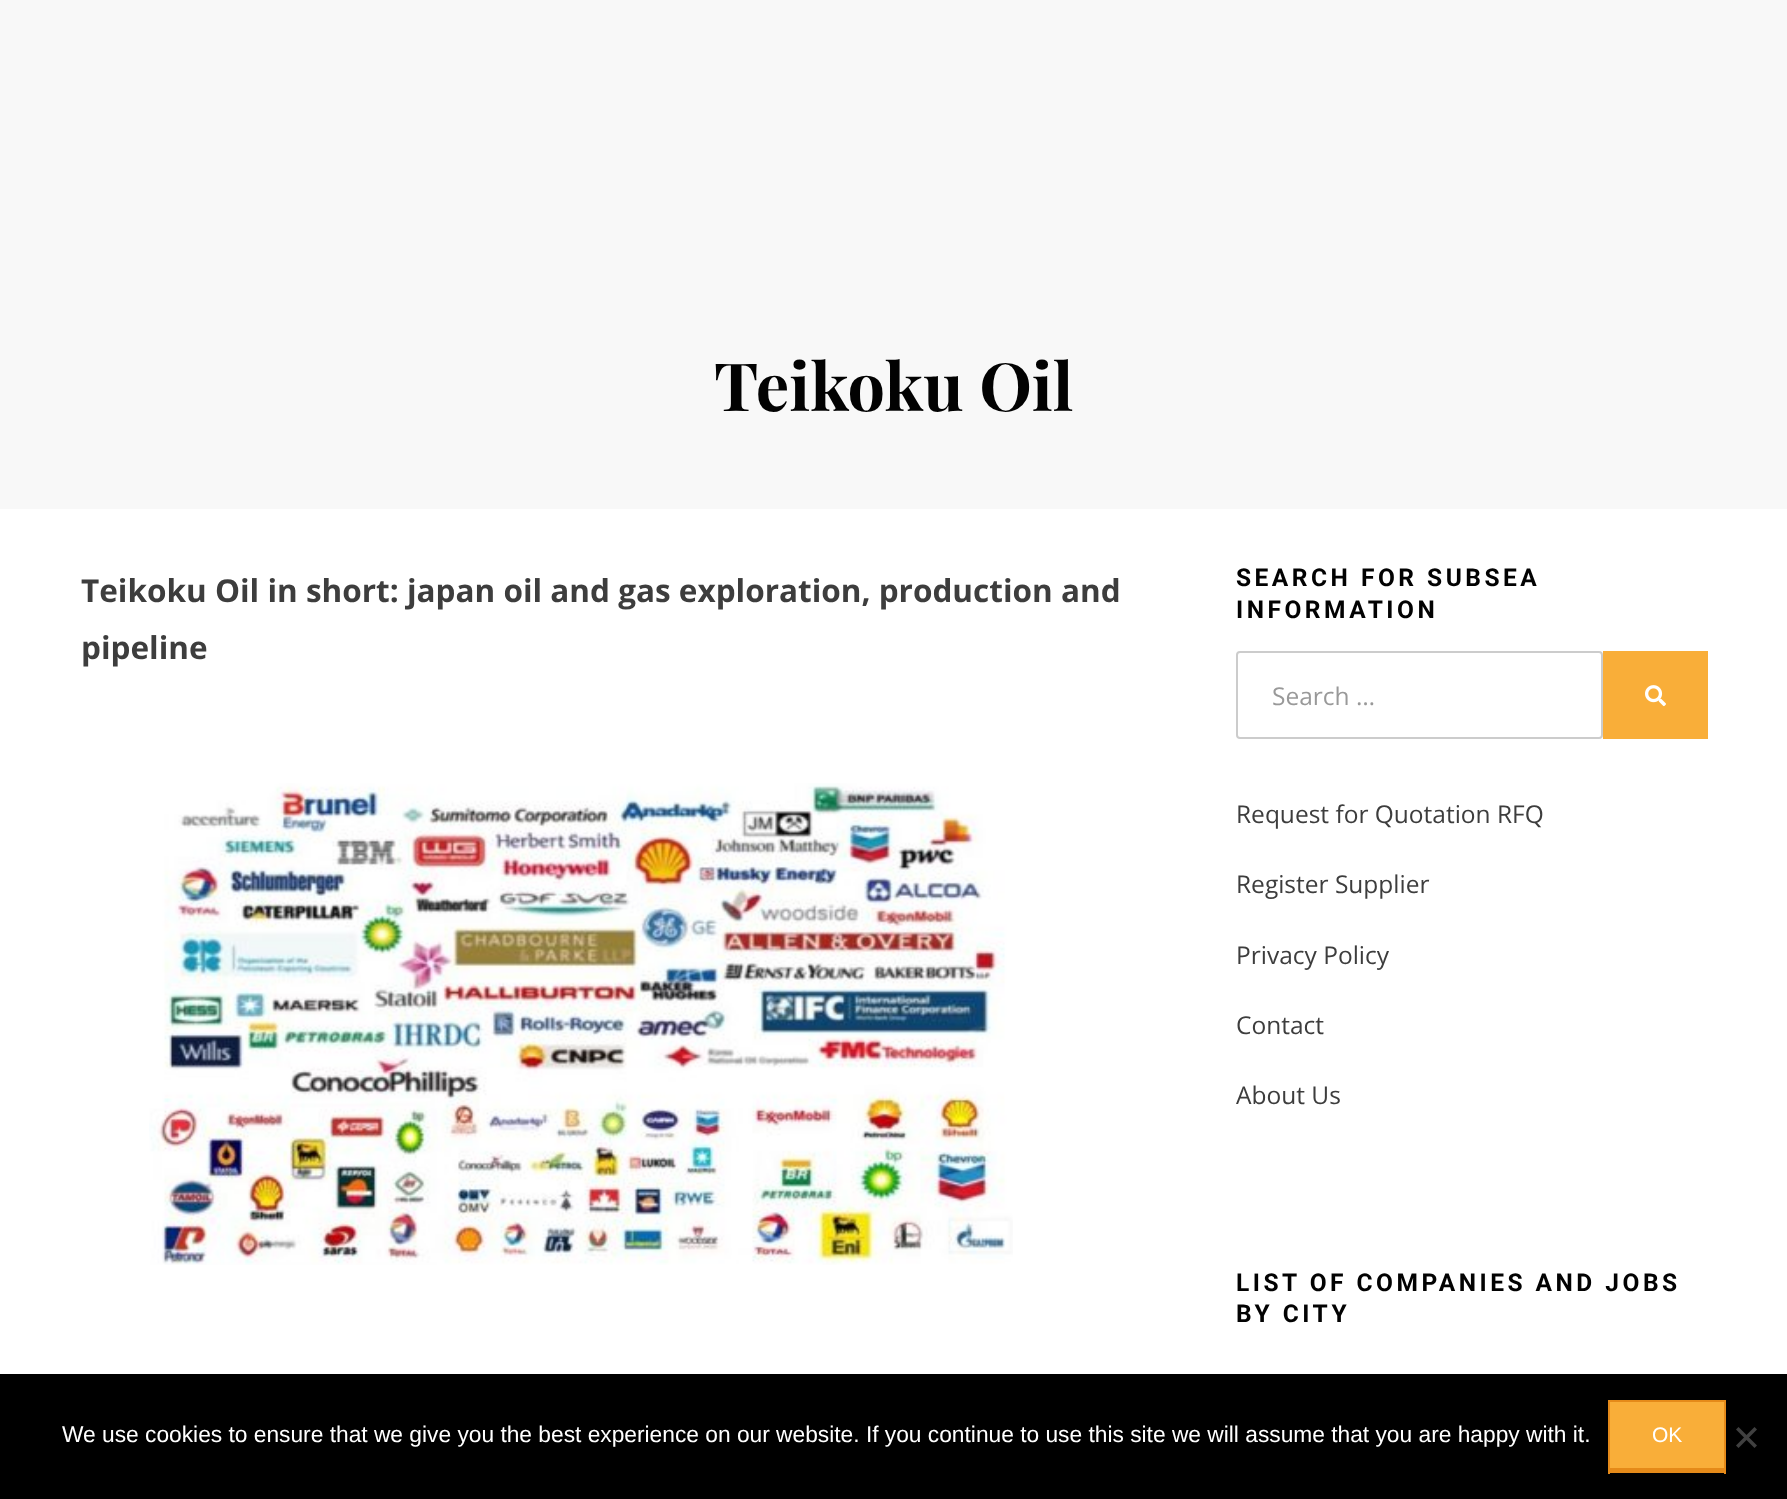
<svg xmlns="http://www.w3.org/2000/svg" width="1787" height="1499">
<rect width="100%" height="100%" fill="#fff"/>
<rect width="1787" height="509" fill="#f8f8f8"/>
<text x="714" y="411" style="font-family:Playfair Display;font-size:66.5px;font-weight:bold;fill:#020202">Teikoku Oil</text>
<text x="81" y="602" style="font-family:Open Sans;font-size:31.5px;font-weight:bold;fill:#3d3d3d">Teikoku Oil in short: japan oil and gas exploration, production and</text>
<text x="81" y="659" style="font-family:Open Sans;font-size:31.5px;font-weight:bold;fill:#3d3d3d">pipeline</text>
<image x="149" y="783" width="864" height="482" href="media/1.png"/>
<text x="1236" y="586" style="font-family:Roboto;font-size:24.5px;font-weight:bold;letter-spacing:3.5px;fill:#020202">SEARCH FOR SUBSEA</text>
<text x="1236" y="618" style="font-family:Roboto;font-size:24.5px;font-weight:bold;letter-spacing:3.5px;fill:#020202">INFORMATION</text>
<rect x="1237" y="652" width="365" height="86" rx="3" fill="none" stroke="#ccc" stroke-width="2"/>
<text x="1272" y="705" style="font-family:Open Sans;font-size:24.5px;fill:#999">Search …</text>
<rect x="1603" y="651" width="105" height="88" fill="#f9ae39"/>
<image x="1645" y="685" width="21" height="22" href="media/2.png"/>
<text x="1236" y="823" style="font-family:Open Sans;font-size:24.5px;fill:#3d3d3d">Request for Quotation RFQ</text>
<text x="1236" y="893" style="font-family:Open Sans;font-size:24.5px;fill:#3d3d3d">Register Supplier</text>
<text x="1236" y="964" style="font-family:Open Sans;font-size:24.5px;fill:#3d3d3d">Privacy Policy</text>
<text x="1236" y="1034" style="font-family:Open Sans;font-size:24.5px;fill:#3d3d3d">Contact</text>
<text x="1236" y="1104" style="font-family:Open Sans;font-size:24.5px;fill:#3d3d3d">About Us</text>
<text x="1236" y="1291" style="font-family:Roboto;font-size:24.5px;font-weight:bold;letter-spacing:3.5px;fill:#020202">LIST OF COMPANIES AND JOBS</text>
<text x="1236" y="1322" style="font-family:Roboto;font-size:24.5px;font-weight:bold;letter-spacing:3.5px;fill:#020202">BY CITY</text>
<rect y="1374" width="1787" height="125" fill="#000"/>
<text x="62" y="1442" style="font-family:Liberation Sans;font-size:22.75px;fill:#fff">We use cookies to ensure that we give you the best experience on our website. If you continue to use this site we will assume that you are happy with it.</text>
<rect x="1610" y="1402" width="114" height="66" fill="#f9ae39"/>
<rect x="1608" y="1400" width="118" height="2" fill="#e58a19"/>
<rect x="1724" y="1400" width="2" height="74" fill="#e58a19"/>
<rect x="1608" y="1468" width="118" height="5" fill="#e58a19"/>
<rect x="1608" y="1400" width="2" height="74" fill="#e58a19"/>
<text x="1652" y="1442" style="font-family:Liberation Sans;font-size:21px;fill:#fff">OK</text>
<path d="M1754.5 1427l2.5 2.5l-18.5 18.5l-2.5-2.5z" fill="#404040"/>
<path d="M1736 1429.5l2.5-2.5l18.5 18.5l-2.5 2.5z" fill="#404040"/>
</svg>
